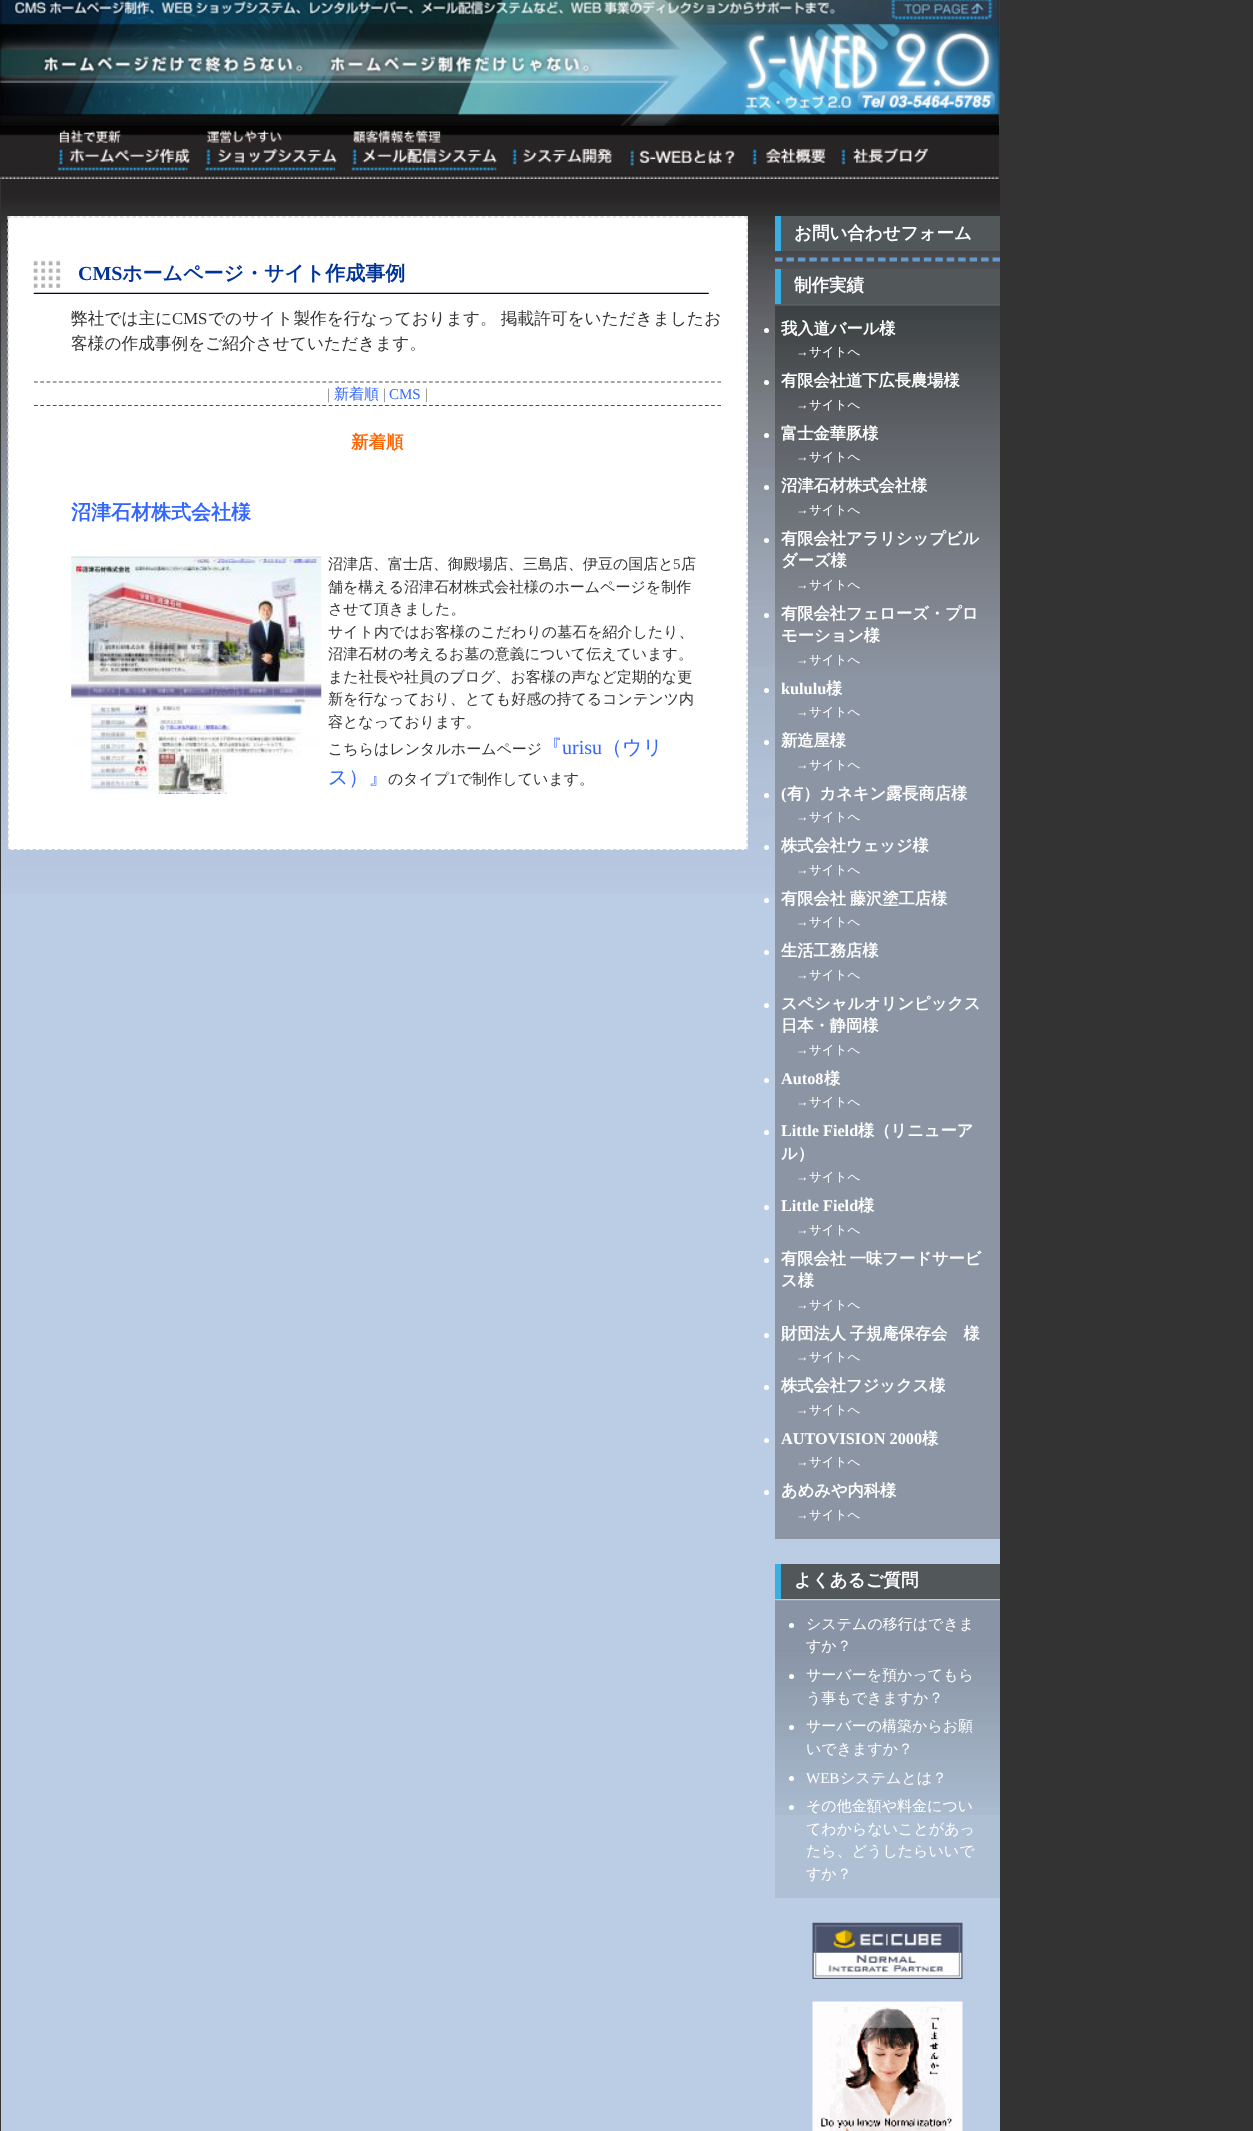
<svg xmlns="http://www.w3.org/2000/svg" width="1253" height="2131">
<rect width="100%" height="100%" fill="#333"/>
<image x="0" y="0" width="1000" height="126" href="media/1.png"/>
<image x="879" y="0" width="120" height="24" href="media/2.png"/>
<rect y="126" width="999" height="1" fill="#000"/>
<image x="0" y="127" width="999" height="52" href="media/3.png"/>
<image x="56" y="130" width="135" height="41" href="media/4.png"/>
<image x="204" y="130" width="134" height="41" href="media/5.png"/>
<image x="350" y="130" width="147" height="41" href="media/6.png"/>
<image x="510" y="148" width="103" height="17" href="media/7.png"/>
<image x="628" y="149" width="108" height="17" href="media/8.png"/>
<image x="750" y="148" width="76" height="17" href="media/9.png"/>
<image x="839" y="147" width="90" height="18" href="media/10.png"/>
<rect x="1" y="894" width="999" height="1237" fill="#bbcde5"/>
<image x="1" y="179" width="999" height="715" href="media/11.png"/>
<rect x="8" y="216" width="740" height="634" fill="#fff"/>
<path d="M7.5 217h740" fill="none" stroke="#ccc" stroke-width="1.2" stroke-dasharray="3.75 2.49"/>
<path d="M747 216v634" fill="none" stroke="#ccc" stroke-width="1.2" stroke-dasharray="3.75 2.49"/>
<path d="M7.5 849.5h740" fill="none" stroke="#ccc" stroke-width="1.2" stroke-dasharray="3.75 2.49"/>
<path d="M8 216v634" fill="none" stroke="#ccc" stroke-width="1.2" stroke-dasharray="3.75 2.49"/>
<image x="33" y="260" width="676" height="34" href="media/12.png"/>
<text x="78" y="280" style="font-family:Liberation Serif;font-size:20px;font-weight:bold;fill:#039">CMS</text>
<text x="122" y="280" style="font-family:WenQuanYi Zen Hei;font-size:20px;font-weight:bold;fill:#039">ホームページ・サイト作成事例</text>
<text x="71" y="324" style="font-family:WenQuanYi Zen Hei;font-size:16.7px;font-weight:500;fill:#333">弊社では主に</text>
<text x="172" y="324" style="font-family:Liberation Serif;font-size:16.7px;fill:#333">CMS</text>
<text x="208" y="324" word-spacing="-1" style="font-family:WenQuanYi Zen Hei;font-size:16.7px;font-weight:500;fill:#333">でのサイト製作を行なっております。 掲載許可をいただきましたお</text>
<text x="71" y="349" style="font-family:WenQuanYi Zen Hei;font-size:16.7px;font-weight:500;fill:#333">客様の作成事例をご紹介させていただきます。</text>
<path d="M34 382h687" fill="none" stroke="#4d4d4d" stroke-width="1.2" stroke-dasharray="3.75 2.52"/>
<path d="M34 405.5h687" fill="none" stroke="#4d4d4d" stroke-width="1.2" stroke-dasharray="3.75 2.52"/>
<text x="327" y="399" style="font-family:Liberation Serif;font-size:15px;fill:#808080">|</text>
<text x="334" y="399" style="font-family:WenQuanYi Zen Hei;font-size:15px;font-weight:500;fill:#36f">新着順</text>
<text x="383" y="399" style="font-family:Liberation Serif;font-size:15px;fill:#808080">|</text>
<text x="389" y="399" style="font-family:Liberation Serif;font-size:15px;fill:#36f">CMS</text>
<text x="425" y="399" style="font-family:Liberation Serif;font-size:15px;fill:#808080">|</text>
<text x="351" y="448" style="font-family:WenQuanYi Zen Hei;font-size:17.5px;font-weight:bold;fill:#ff6500">新着順</text>
<text x="71" y="519" style="font-family:WenQuanYi Zen Hei;font-size:20px;font-weight:bold;fill:#36f">沼津石材株式会社様</text>
<image x="71" y="556" width="251" height="238" href="media/13.png"/>
<text x="328" y="569" style="font-family:WenQuanYi Zen Hei;font-size:15px;font-weight:500;fill:#333">沼津店、富士店、御殿場店、三島店、伊豆の国店と</text>
<text x="673" y="569" style="font-family:Liberation Serif;font-size:15px;fill:#333">5</text>
<text x="681" y="569" style="font-family:WenQuanYi Zen Hei;font-size:15px;font-weight:500;fill:#333">店</text>
<text x="328" y="592" style="font-family:WenQuanYi Zen Hei;font-size:15px;font-weight:500;fill:#333">舗を構える沼津石材株式会社様のホームページを制作</text>
<text x="328" y="614" style="font-family:WenQuanYi Zen Hei;font-size:15px;font-weight:500;fill:#333">させて頂きました。</text>
<text x="328" y="637" style="font-family:WenQuanYi Zen Hei;font-size:15px;font-weight:500;fill:#333">サイト内ではお客様のこだわりの墓石を紹介したり、</text>
<text x="328" y="659" style="font-family:WenQuanYi Zen Hei;font-size:15px;font-weight:500;fill:#333">沼津石材の考えるお墓の意義について伝えています。</text>
<text x="328" y="682" style="font-family:WenQuanYi Zen Hei;font-size:15px;font-weight:500;fill:#333">また社長や社員のブログ、お客様の声など定期的な更</text>
<text x="328" y="704" style="font-family:WenQuanYi Zen Hei;font-size:15px;font-weight:500;fill:#333">新を行なっており、とても好感の持てるコンテンツ内</text>
<text x="328" y="727" style="font-family:WenQuanYi Zen Hei;font-size:15px;font-weight:500;fill:#333">容となっております。</text>
<text x="328" y="754" style="font-family:WenQuanYi Zen Hei;font-size:15px;font-weight:500;fill:#333">こちらはレンタルホームページ</text>
<text x="542" y="754" style="font-family:WenQuanYi Zen Hei;font-size:20px;font-weight:500;fill:#36f">『</text>
<text x="562" y="754" style="font-family:Liberation Serif;font-size:20px;fill:#36f">urisu</text>
<text x="602" y="754" style="font-family:WenQuanYi Zen Hei;font-size:20px;font-weight:500;fill:#36f">（ウリ</text>
<text x="328" y="784" style="font-family:WenQuanYi Zen Hei;font-size:20px;font-weight:500;fill:#36f">ス）』</text>
<text x="388" y="784" style="font-family:WenQuanYi Zen Hei;font-size:15px;font-weight:500;fill:#333">のタイプ</text>
<text x="449" y="784" style="font-family:Liberation Serif;font-size:15px;fill:#333">1</text>
<text x="457" y="784" style="font-family:WenQuanYi Zen Hei;font-size:15px;font-weight:500;fill:#333">で制作しています。</text>
<rect x="781" y="216" width="219" height="35" fill="#52575a"/>
<rect x="775" y="216" width="6" height="35" fill="#38aee2"/>
<text x="794" y="239" style="font-family:WenQuanYi Zen Hei;font-size:17.5px;font-weight:bold;fill:#fff">お問い合わせフォーム</text>
<path d="M775 259.5h225" fill="none" stroke="#69c" stroke-width="3.8" stroke-dasharray="7.5 3.95"/>
<rect x="781" y="269" width="219" height="35" fill="#52575a"/>
<rect x="775" y="269" width="6" height="35" fill="#38aee2"/>
<text x="794" y="291" style="font-family:WenQuanYi Zen Hei;font-size:17.5px;font-weight:bold;fill:#fff">制作実績</text>
<rect x="775" y="305" width="225" height="1234" fill="#8b95a4"/>
<image x="775" y="305" width="225" height="371" href="media/14.png"/>
<circle cx="766.5" cy="330.5" r="2.5" fill="#fff"/>
<text x="781" y="334" style="font-family:WenQuanYi Zen Hei;font-size:16.25px;font-weight:bold;fill:#fff">我入道バール様</text>
<text x="796" y="356" style="font-family:Liberation Serif;font-size:12.5px;fill:#fff">→</text>
<text x="809" y="356" style="font-family:WenQuanYi Zen Hei;font-size:12.5px;font-weight:500;fill:#fff">サイトへ</text>
<circle cx="766.5" cy="382.5" r="2.5" fill="#fff"/>
<text x="781" y="386" style="font-family:WenQuanYi Zen Hei;font-size:16.25px;font-weight:bold;fill:#fff">有限会社道下広長農場様</text>
<text x="796" y="409" style="font-family:Liberation Serif;font-size:12.5px;fill:#fff">→</text>
<text x="809" y="409" style="font-family:WenQuanYi Zen Hei;font-size:12.5px;font-weight:500;fill:#fff">サイトへ</text>
<circle cx="766.5" cy="435.5" r="2.5" fill="#fff"/>
<text x="781" y="439" style="font-family:WenQuanYi Zen Hei;font-size:16.25px;font-weight:bold;fill:#fff">富士金華豚様</text>
<text x="796" y="461" style="font-family:Liberation Serif;font-size:12.5px;fill:#fff">→</text>
<text x="809" y="461" style="font-family:WenQuanYi Zen Hei;font-size:12.5px;font-weight:500;fill:#fff">サイトへ</text>
<circle cx="766.5" cy="487.5" r="2.5" fill="#fff"/>
<text x="781" y="491" style="font-family:WenQuanYi Zen Hei;font-size:16.25px;font-weight:bold;fill:#fff">沼津石材株式会社様</text>
<text x="796" y="514" style="font-family:Liberation Serif;font-size:12.5px;fill:#fff">→</text>
<text x="809" y="514" style="font-family:WenQuanYi Zen Hei;font-size:12.5px;font-weight:500;fill:#fff">サイトへ</text>
<circle cx="766.5" cy="540.5" r="2.5" fill="#fff"/>
<text x="781" y="544" style="font-family:WenQuanYi Zen Hei;font-size:16.25px;font-weight:bold;fill:#fff">有限会社アラリシップビル</text>
<text x="781" y="566" style="font-family:WenQuanYi Zen Hei;font-size:16.25px;font-weight:bold;fill:#fff">ダーズ様</text>
<text x="796" y="589" style="font-family:Liberation Serif;font-size:12.5px;fill:#fff">→</text>
<text x="809" y="589" style="font-family:WenQuanYi Zen Hei;font-size:12.5px;font-weight:500;fill:#fff">サイトへ</text>
<circle cx="766.5" cy="615.5" r="2.5" fill="#fff"/>
<text x="781" y="619" style="font-family:WenQuanYi Zen Hei;font-size:16.25px;font-weight:bold;fill:#fff">有限会社フェローズ・プロ</text>
<text x="781" y="641" style="font-family:WenQuanYi Zen Hei;font-size:16.25px;font-weight:bold;fill:#fff">モーション様</text>
<text x="796" y="664" style="font-family:Liberation Serif;font-size:12.5px;fill:#fff">→</text>
<text x="809" y="664" style="font-family:WenQuanYi Zen Hei;font-size:12.5px;font-weight:500;fill:#fff">サイトへ</text>
<circle cx="766.5" cy="690.5" r="2.5" fill="#fff"/>
<text x="781" y="694" style="font-family:Liberation Serif;font-size:16.25px;font-weight:bold;fill:#fff">kululu</text>
<text x="826" y="694" style="font-family:WenQuanYi Zen Hei;font-size:16.25px;font-weight:bold;fill:#fff">様</text>
<text x="796" y="716" style="font-family:Liberation Serif;font-size:12.5px;fill:#fff">→</text>
<text x="809" y="716" style="font-family:WenQuanYi Zen Hei;font-size:12.5px;font-weight:500;fill:#fff">サイトへ</text>
<circle cx="766.5" cy="742.5" r="2.5" fill="#fff"/>
<text x="781" y="746" style="font-family:WenQuanYi Zen Hei;font-size:16.25px;font-weight:bold;fill:#fff">新造屋様</text>
<text x="796" y="769" style="font-family:Liberation Serif;font-size:12.5px;fill:#fff">→</text>
<text x="809" y="769" style="font-family:WenQuanYi Zen Hei;font-size:12.5px;font-weight:500;fill:#fff">サイトへ</text>
<circle cx="766.5" cy="795.5" r="2.5" fill="#fff"/>
<text x="781" y="799" style="font-family:Liberation Serif;font-size:16.25px;font-weight:bold;fill:#fff">(</text>
<text x="787" y="799" style="font-family:WenQuanYi Zen Hei;font-size:16.25px;font-weight:bold;fill:#fff">有）カネキン露長商店様</text>
<text x="796" y="821" style="font-family:Liberation Serif;font-size:12.5px;fill:#fff">→</text>
<text x="809" y="821" style="font-family:WenQuanYi Zen Hei;font-size:12.5px;font-weight:500;fill:#fff">サイトへ</text>
<circle cx="766.5" cy="847.5" r="2.5" fill="#fff"/>
<text x="781" y="851" style="font-family:WenQuanYi Zen Hei;font-size:16.25px;font-weight:bold;fill:#fff">株式会社ウェッジ様</text>
<text x="796" y="874" style="font-family:Liberation Serif;font-size:12.5px;fill:#fff">→</text>
<text x="809" y="874" style="font-family:WenQuanYi Zen Hei;font-size:12.5px;font-weight:500;fill:#fff">サイトへ</text>
<circle cx="766.5" cy="900.5" r="2.5" fill="#fff"/>
<text x="781" y="904" word-spacing="-1" style="font-family:WenQuanYi Zen Hei;font-size:16.25px;font-weight:bold;fill:#fff">有限会社 藤沢塗工店様</text>
<text x="796" y="926" style="font-family:Liberation Serif;font-size:12.5px;fill:#fff">→</text>
<text x="809" y="926" style="font-family:WenQuanYi Zen Hei;font-size:12.5px;font-weight:500;fill:#fff">サイトへ</text>
<circle cx="766.5" cy="952.5" r="2.5" fill="#fff"/>
<text x="781" y="956" style="font-family:WenQuanYi Zen Hei;font-size:16.25px;font-weight:bold;fill:#fff">生活工務店様</text>
<text x="796" y="979" style="font-family:Liberation Serif;font-size:12.5px;fill:#fff">→</text>
<text x="809" y="979" style="font-family:WenQuanYi Zen Hei;font-size:12.5px;font-weight:500;fill:#fff">サイトへ</text>
<circle cx="766.5" cy="1005.5" r="2.5" fill="#fff"/>
<text x="781" y="1009" style="font-family:WenQuanYi Zen Hei;font-size:16.25px;font-weight:bold;fill:#fff">スペシャルオリンピックス</text>
<text x="781" y="1031" style="font-family:WenQuanYi Zen Hei;font-size:16.25px;font-weight:bold;fill:#fff">日本・静岡様</text>
<text x="796" y="1054" style="font-family:Liberation Serif;font-size:12.5px;fill:#fff">→</text>
<text x="809" y="1054" style="font-family:WenQuanYi Zen Hei;font-size:12.5px;font-weight:500;fill:#fff">サイトへ</text>
<circle cx="766.5" cy="1080.5" r="2.5" fill="#fff"/>
<text x="781" y="1084" style="font-family:Liberation Serif;font-size:16.25px;font-weight:bold;fill:#fff">Auto8</text>
<text x="824" y="1084" style="font-family:WenQuanYi Zen Hei;font-size:16.25px;font-weight:bold;fill:#fff">様</text>
<text x="796" y="1106" style="font-family:Liberation Serif;font-size:12.5px;fill:#fff">→</text>
<text x="809" y="1106" style="font-family:WenQuanYi Zen Hei;font-size:12.5px;font-weight:500;fill:#fff">サイトへ</text>
<circle cx="766.5" cy="1132.5" r="2.5" fill="#fff"/>
<text x="781" y="1136" style="font-family:Liberation Serif;font-size:16.25px;font-weight:bold;fill:#fff">Little Field</text>
<text x="858" y="1136" style="font-family:WenQuanYi Zen Hei;font-size:16.25px;font-weight:bold;fill:#fff">様（リニューア</text>
<text x="781" y="1159" style="font-family:WenQuanYi Zen Hei;font-size:16.25px;font-weight:bold;fill:#fff">ル）</text>
<text x="796" y="1181" style="font-family:Liberation Serif;font-size:12.5px;fill:#fff">→</text>
<text x="809" y="1181" style="font-family:WenQuanYi Zen Hei;font-size:12.5px;font-weight:500;fill:#fff">サイトへ</text>
<circle cx="766.5" cy="1207.5" r="2.5" fill="#fff"/>
<text x="781" y="1211" style="font-family:Liberation Serif;font-size:16.25px;font-weight:bold;fill:#fff">Little Field</text>
<text x="858" y="1211" style="font-family:WenQuanYi Zen Hei;font-size:16.25px;font-weight:bold;fill:#fff">様</text>
<text x="796" y="1234" style="font-family:Liberation Serif;font-size:12.5px;fill:#fff">→</text>
<text x="809" y="1234" style="font-family:WenQuanYi Zen Hei;font-size:12.5px;font-weight:500;fill:#fff">サイトへ</text>
<circle cx="766.5" cy="1260.5" r="2.5" fill="#fff"/>
<text x="781" y="1264" word-spacing="-1" style="font-family:WenQuanYi Zen Hei;font-size:16.25px;font-weight:bold;fill:#fff">有限会社 一味フードサービ</text>
<text x="781" y="1286" style="font-family:WenQuanYi Zen Hei;font-size:16.25px;font-weight:bold;fill:#fff">ス様</text>
<text x="796" y="1309" style="font-family:Liberation Serif;font-size:12.5px;fill:#fff">→</text>
<text x="809" y="1309" style="font-family:WenQuanYi Zen Hei;font-size:12.5px;font-weight:500;fill:#fff">サイトへ</text>
<circle cx="766.5" cy="1335.5" r="2.5" fill="#fff"/>
<text x="781" y="1339" word-spacing="-1" style="font-family:WenQuanYi Zen Hei;font-size:16.25px;font-weight:bold;fill:#fff">財団法人 子規庵保存会　様</text>
<text x="796" y="1361" style="font-family:Liberation Serif;font-size:12.5px;fill:#fff">→</text>
<text x="809" y="1361" style="font-family:WenQuanYi Zen Hei;font-size:12.5px;font-weight:500;fill:#fff">サイトへ</text>
<circle cx="766.5" cy="1387.5" r="2.5" fill="#fff"/>
<text x="781" y="1391" style="font-family:WenQuanYi Zen Hei;font-size:16.25px;font-weight:bold;fill:#fff">株式会社フジックス様</text>
<text x="796" y="1414" style="font-family:Liberation Serif;font-size:12.5px;fill:#fff">→</text>
<text x="809" y="1414" style="font-family:WenQuanYi Zen Hei;font-size:12.5px;font-weight:500;fill:#fff">サイトへ</text>
<circle cx="766.5" cy="1440.5" r="2.5" fill="#fff"/>
<text x="781" y="1444" style="font-family:Liberation Serif;font-size:16.25px;font-weight:bold;fill:#fff">AUTOVISION 2000</text>
<text x="922" y="1444" style="font-family:WenQuanYi Zen Hei;font-size:16.25px;font-weight:bold;fill:#fff">様</text>
<text x="796" y="1466" style="font-family:Liberation Serif;font-size:12.5px;fill:#fff">→</text>
<text x="809" y="1466" style="font-family:WenQuanYi Zen Hei;font-size:12.5px;font-weight:500;fill:#fff">サイトへ</text>
<circle cx="766.5" cy="1492.5" r="2.5" fill="#fff"/>
<text x="781" y="1496" style="font-family:WenQuanYi Zen Hei;font-size:16.25px;font-weight:bold;fill:#fff">あめみや内科様</text>
<text x="796" y="1519" style="font-family:Liberation Serif;font-size:12.5px;fill:#fff">→</text>
<text x="809" y="1519" style="font-family:WenQuanYi Zen Hei;font-size:12.5px;font-weight:500;fill:#fff">サイトへ</text>
<rect x="781" y="1564" width="219" height="35" fill="#52575a"/>
<rect x="775" y="1564" width="6" height="35" fill="#38aee2"/>
<text x="794" y="1586" style="font-family:WenQuanYi Zen Hei;font-size:17.5px;font-weight:bold;fill:#fff">よくあるご質問</text>
<rect x="775" y="1600" width="225" height="298" fill="#afc0d4"/>
<image x="775" y="1600" width="225" height="215" href="media/15.png"/>
<circle cx="791.5" cy="1625.5" r="2.5" fill="#fff"/>
<text x="806" y="1629" style="font-family:WenQuanYi Zen Hei;font-size:15px;font-weight:500;fill:#fff">システムの移行はできま</text>
<text x="806" y="1651" style="font-family:WenQuanYi Zen Hei;font-size:15px;font-weight:500;fill:#fff">すか？</text>
<circle cx="791.5" cy="1676.5" r="2.5" fill="#fff"/>
<text x="806" y="1680" style="font-family:WenQuanYi Zen Hei;font-size:15px;font-weight:500;fill:#fff">サーバーを預かってもら</text>
<text x="806" y="1703" style="font-family:WenQuanYi Zen Hei;font-size:15px;font-weight:500;fill:#fff">う事もできますか？</text>
<circle cx="791.5" cy="1727.5" r="2.5" fill="#fff"/>
<text x="806" y="1731" style="font-family:WenQuanYi Zen Hei;font-size:15px;font-weight:500;fill:#fff">サーバーの構築からお願</text>
<text x="806" y="1754" style="font-family:WenQuanYi Zen Hei;font-size:15px;font-weight:500;fill:#fff">いできますか？</text>
<circle cx="791.5" cy="1778.5" r="2.5" fill="#fff"/>
<text x="806" y="1783" style="font-family:Liberation Serif;font-size:15px;fill:#fff">WEB</text>
<text x="840" y="1783" style="font-family:WenQuanYi Zen Hei;font-size:15px;font-weight:500;fill:#fff">システムとは？</text>
<circle cx="791.5" cy="1807.5" r="2.5" fill="#fff"/>
<text x="806" y="1811" style="font-family:WenQuanYi Zen Hei;font-size:15px;font-weight:500;fill:#fff">その他金額や料金につい</text>
<text x="806" y="1834" style="font-family:WenQuanYi Zen Hei;font-size:15px;font-weight:500;fill:#fff">てわからないことがあっ</text>
<text x="806" y="1856" style="font-family:WenQuanYi Zen Hei;font-size:15px;font-weight:500;fill:#fff">たら、どうしたらいいで</text>
<text x="806" y="1879" style="font-family:WenQuanYi Zen Hei;font-size:15px;font-weight:500;fill:#fff">すか？</text>
<image x="812" y="1922" width="151" height="57" href="media/16.png"/>
<image x="812" y="2001" width="151" height="130" href="media/17.png"/>
</svg>
